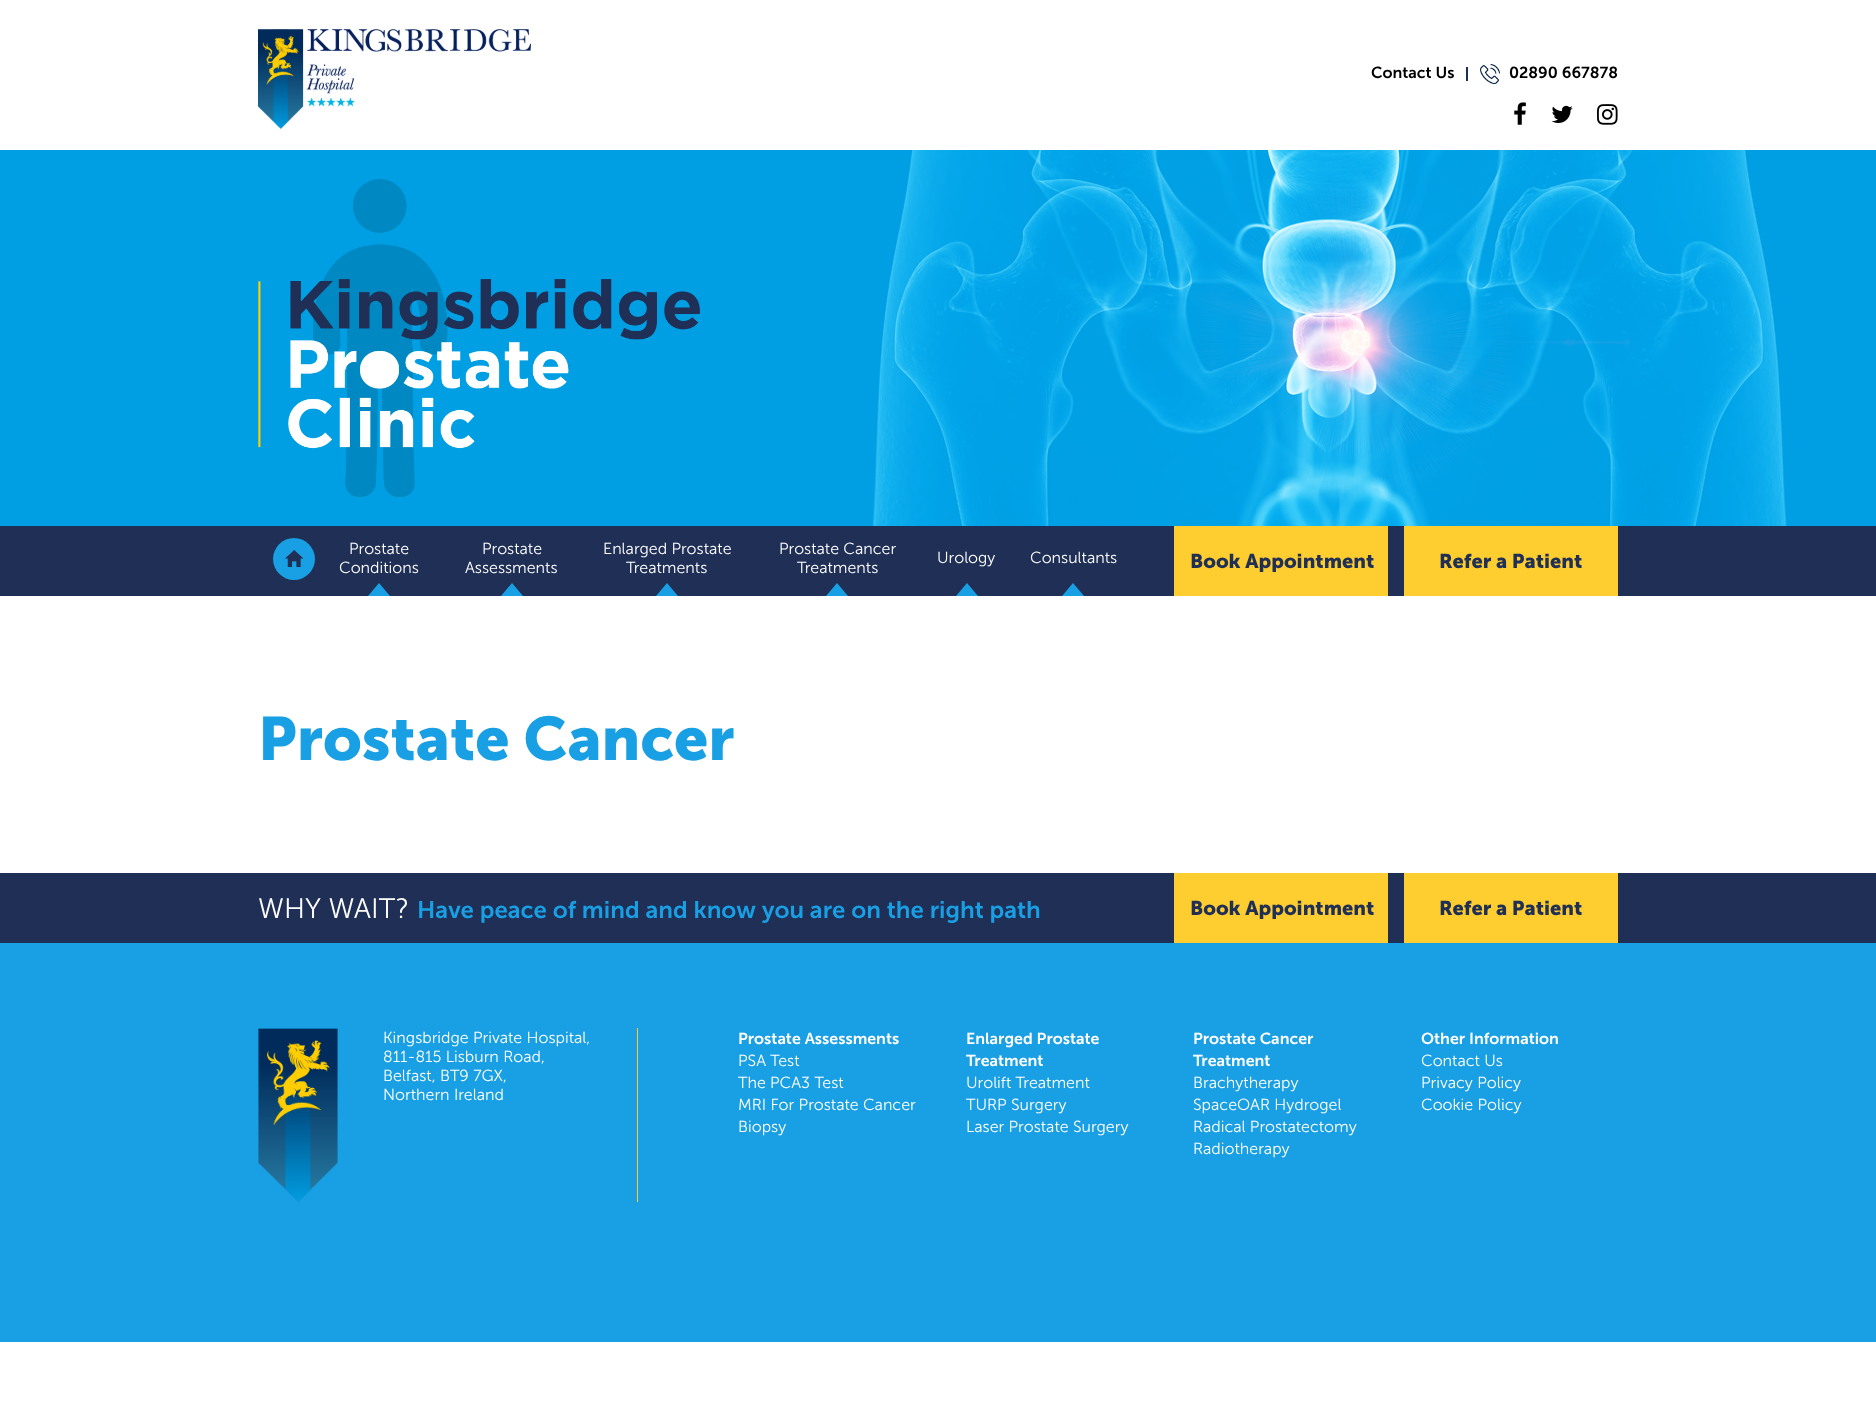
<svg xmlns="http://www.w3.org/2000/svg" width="1876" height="1427">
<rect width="100%" height="100%" fill="#fff"/>
<image x="258" y="29" width="273" height="100" href="media/1.png"/>
<text x="1371" y="78" style="font-family:'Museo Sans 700';font-size:16px;font-weight:600;fill:#000">Contact Us</text>
<rect x="1466" y="67" width="2" height="14" fill="#1f2f56"/>
<image x="1480" y="64" width="20" height="20" href="media/2.png"/>
<text x="1509" y="78" style="font-family:'Museo Sans 700';font-size:16px;font-weight:600;fill:#000">02890 667878</text>
<image x="1514" y="102" width="12" height="23" href="media/3.png"/>
<image x="1551" y="105" width="22" height="18" href="media/4.png"/>
<image x="1597" y="104" width="21" height="21" href="media/5.png"/>
<image x="0" y="150" width="1876" height="376" href="media/6.png"/>
<image x="258" y="179" width="442" height="318" href="media/7.png"/>
<rect y="526" width="1876" height="70" fill="#1f2f56"/>
<circle cx="294" cy="559" r="21" fill="#199fe3"/>
<image x="285" y="550" width="18" height="17" href="media/8.png"/>
<text x="349" y="554" style="font-family:'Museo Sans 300';font-size:16px;font-weight:300;fill:#fff">Prostate</text>
<text x="339" y="573" style="font-family:'Museo Sans 300';font-size:16px;font-weight:300;fill:#fff">Conditions</text>
<path d="M379 583l11 13h-22z" fill="#199fe3"/>
<text x="482" y="554" style="font-family:'Museo Sans 300';font-size:16px;font-weight:300;fill:#fff">Prostate</text>
<text x="465" y="573" style="font-family:'Museo Sans 300';font-size:16px;font-weight:300;fill:#fff">Assessments</text>
<path d="M512 583l11 13h-22z" fill="#199fe3"/>
<text x="603" y="554" style="font-family:'Museo Sans 300';font-size:16px;font-weight:300;fill:#fff">Enlarged Prostate</text>
<text x="626" y="573" style="font-family:'Museo Sans 300';font-size:16px;font-weight:300;fill:#fff">Treatments</text>
<path d="M667 583l11 13h-22z" fill="#199fe3"/>
<text x="779" y="554" style="font-family:'Museo Sans 300';font-size:16px;font-weight:300;fill:#fff">Prostate Cancer</text>
<text x="797" y="573" style="font-family:'Museo Sans 300';font-size:16px;font-weight:300;fill:#fff">Treatments</text>
<path d="M837 583l11 13h-22z" fill="#199fe3"/>
<text x="937" y="563" style="font-family:'Museo Sans 300';font-size:16px;font-weight:300;fill:#fff">Urology</text>
<path d="M967 583l11 13h-22z" fill="#199fe3"/>
<text x="1030" y="563" style="font-family:'Museo Sans 300';font-size:16px;font-weight:300;fill:#fff">Consultants</text>
<path d="M1073 583l11 13h-22z" fill="#199fe3"/>
<rect x="1174" y="526" width="214" height="70" fill="#fecd2f"/>
<text x="1190" y="568" style="font-family:'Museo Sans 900';font-size:20px;font-weight:bold;fill:#1f2f56">Book Appointment</text>
<rect x="1404" y="526" width="214" height="70" fill="#fecd2f"/>
<text x="1439" y="568" style="font-family:'Museo Sans 900';font-size:20px;font-weight:bold;fill:#1f2f56">Refer a Patient</text>
<text x="258" y="760" style="font-family:'Museo Sans 900';font-size:61px;font-weight:bold;fill:#199fe3">Prostate Cancer</text>
<rect y="943" width="1876" height="399" fill="#199fe3"/>
<rect y="873" width="1876" height="70" fill="#1f2f56"/>
<text x="258" y="918" style="font-family:'Museo Sans 300';font-size:28px;font-weight:300;fill:#fff">WHY WAIT?</text>
<text x="417" y="918" style="font-family:'Museo Sans 700';font-size:24px;font-weight:600;fill:#199fe3">Have peace of mind and know you are on the right path</text>
<rect x="1174" y="873" width="214" height="70" fill="#fecd2f"/>
<text x="1190" y="915" style="font-family:'Museo Sans 900';font-size:20px;font-weight:bold;fill:#1f2f56">Book Appointment</text>
<rect x="1404" y="873" width="214" height="70" fill="#fecd2f"/>
<text x="1439" y="915" style="font-family:'Museo Sans 900';font-size:20px;font-weight:bold;fill:#1f2f56">Refer a Patient</text>
<rect x="637" y="1028" width="1" height="174" fill="#fecd2f"/>
<image x="258" y="1028" width="80" height="174" href="media/9.png"/>
<text x="383" y="1043" style="font-family:'Museo Sans 300';font-size:16px;font-weight:300;fill:#fff">Kingsbridge Private Hospital,</text>
<text x="383" y="1062" style="font-family:'Museo Sans 300';font-size:16px;font-weight:300;fill:#fff">811-815 Lisburn Road,</text>
<text x="383" y="1081" style="font-family:'Museo Sans 300';font-size:16px;font-weight:300;fill:#fff">Belfast, BT9 7GX,</text>
<text x="383" y="1100" style="font-family:'Museo Sans 300';font-size:16px;font-weight:300;fill:#fff">Northern Ireland</text>
<text x="738" y="1044" style="font-family:'Museo Sans 700';font-size:16px;font-weight:600;fill:#fff">Prostate Assessments</text>
<text x="738" y="1066" style="font-family:'Museo Sans 300';font-size:16px;font-weight:300;fill:#fff">PSA Test</text>
<text x="738" y="1088" style="font-family:'Museo Sans 300';font-size:16px;font-weight:300;fill:#fff">The PCA3 Test</text>
<text x="738" y="1110" style="font-family:'Museo Sans 300';font-size:16px;font-weight:300;fill:#fff">MRI For Prostate Cancer</text>
<text x="738" y="1132" style="font-family:'Museo Sans 300';font-size:16px;font-weight:300;fill:#fff">Biopsy</text>
<text x="966" y="1044" style="font-family:'Museo Sans 700';font-size:16px;font-weight:600;fill:#fff">Enlarged Prostate</text>
<text x="966" y="1066" style="font-family:'Museo Sans 700';font-size:16px;font-weight:600;fill:#fff">Treatment</text>
<text x="966" y="1088" style="font-family:'Museo Sans 300';font-size:16px;font-weight:300;fill:#fff">Urolift Treatment</text>
<text x="966" y="1110" style="font-family:'Museo Sans 300';font-size:16px;font-weight:300;fill:#fff">TURP Surgery</text>
<text x="966" y="1132" style="font-family:'Museo Sans 300';font-size:16px;font-weight:300;fill:#fff">Laser Prostate Surgery</text>
<text x="1193" y="1044" style="font-family:'Museo Sans 700';font-size:16px;font-weight:600;fill:#fff">Prostate Cancer</text>
<text x="1193" y="1066" style="font-family:'Museo Sans 700';font-size:16px;font-weight:600;fill:#fff">Treatment</text>
<text x="1193" y="1088" style="font-family:'Museo Sans 300';font-size:16px;font-weight:300;fill:#fff">Brachytherapy</text>
<text x="1193" y="1110" style="font-family:'Museo Sans 300';font-size:16px;font-weight:300;fill:#fff">SpaceOAR Hydrogel</text>
<text x="1193" y="1132" style="font-family:'Museo Sans 300';font-size:16px;font-weight:300;fill:#fff">Radical Prostatectomy</text>
<text x="1193" y="1154" style="font-family:'Museo Sans 300';font-size:16px;font-weight:300;fill:#fff">Radiotherapy</text>
<text x="1421" y="1044" style="font-family:'Museo Sans 700';font-size:16px;font-weight:600;fill:#fff">Other Information</text>
<text x="1421" y="1066" style="font-family:'Museo Sans 300';font-size:16px;font-weight:300;fill:#fff">Contact Us</text>
<text x="1421" y="1088" style="font-family:'Museo Sans 300';font-size:16px;font-weight:300;fill:#fff">Privacy Policy</text>
<text x="1421" y="1110" style="font-family:'Museo Sans 300';font-size:16px;font-weight:300;fill:#fff">Cookie Policy</text>
</svg>
